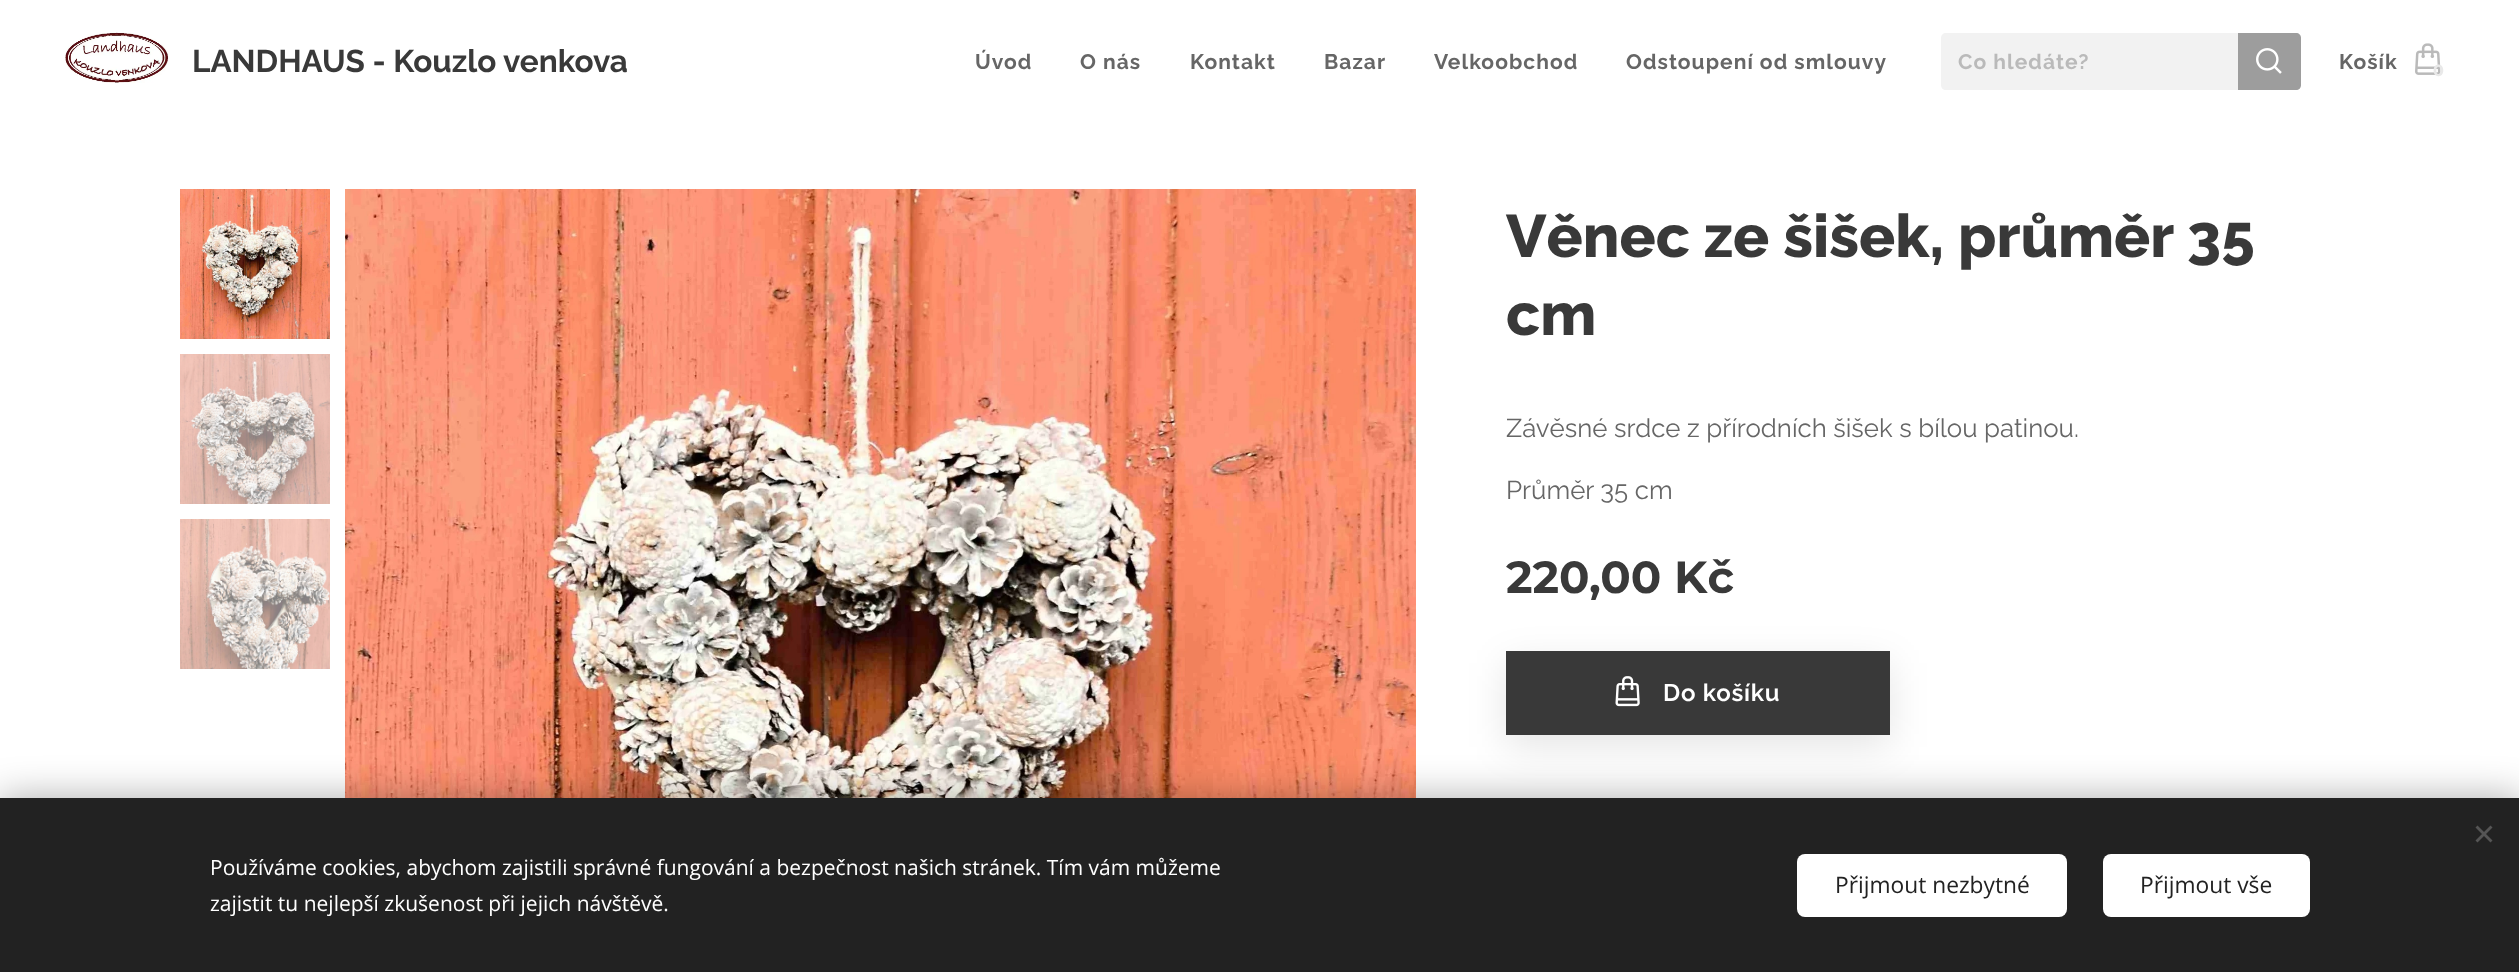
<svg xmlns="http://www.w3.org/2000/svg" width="2519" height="972">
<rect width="100%" height="100%" fill="#fff"/>
<image x="65" y="32" width="104" height="51" href="media/1.png"/>
<text x="192" y="72" style="font-family:Raleway;font-size:31.5px;font-weight:bold;fill:#393939">LANDHAUS - Kouzlo venkova</text>
<text x="975" y="69" style="font-family:Raleway;font-size:21px;font-weight:bold;letter-spacing:1.05px;fill:#666">Úvod</text>
<text x="1080" y="69" style="font-family:Raleway;font-size:21px;font-weight:bold;letter-spacing:1.05px;fill:#666">O nás</text>
<text x="1190" y="69" style="font-family:Raleway;font-size:21px;font-weight:bold;letter-spacing:1.05px;fill:#666">Kontakt</text>
<text x="1324" y="69" style="font-family:Raleway;font-size:21px;font-weight:bold;letter-spacing:1.05px;fill:#666">Bazar</text>
<text x="1434" y="69" style="font-family:Raleway;font-size:21px;font-weight:bold;letter-spacing:1.05px;fill:#666">Velkoobchod</text>
<text x="1626" y="69" style="font-family:Raleway;font-size:21px;font-weight:bold;letter-spacing:1.05px;fill:#666">Odstoupení od smlouvy</text>
<path d="M1946 33h292v57h-292c-3 0-5-2-5-5v-47c0-3 2-5 5-5z" fill="#f2f2f2"/>
<text x="1958" y="69" style="font-family:Raleway;font-size:21px;font-weight:bold;letter-spacing:1.05px;fill:#bababa">Co hledáte?</text>
<path d="M2238 33h58c3 0 5 2 5 5v47c0 3-2 5-5 5h-58z" fill="#9d9d9d"/>
<image x="2256" y="48" width="26" height="26" href="media/2.png"/>
<text x="2339" y="69" style="font-family:Raleway;font-size:21px;font-weight:bold;letter-spacing:1.05px;fill:#666">Košík</text>
<image x="2415" y="43" width="26" height="32" href="media/3.png"/>
<text x="2433" y="76" style="font-family:Montserrat;font-size:16px;font-weight:bold;fill:#e9e9e9">0</text>
<image x="180" y="189" width="150" height="150" href="media/4.png"/>
<image x="180" y="354" width="150" height="150" href="media/5.png"/>
<image x="180" y="519" width="150" height="150" href="media/6.png"/>
<image x="345" y="189" width="1071" height="609" href="media/7.png"/>
<text x="1506" y="257" style="font-family:Raleway;font-size:60px;font-weight:800;fill:#393939">Věnec ze šišek, průměr 35</text>
<text x="1506" y="335" style="font-family:Raleway;font-size:60px;font-weight:800;fill:#393939">cm</text>
<text x="1506" y="437" style="font-family:Raleway;font-size:25.8px;fill:#666">Závěsné srdce z přírodních šišek s bílou patinou.</text>
<text x="1506" y="499" style="font-family:Raleway;font-size:25.8px;fill:#666">Průměr 35 cm</text>
<text x="1506" y="593" style="font-family:Montserrat;font-size:45px;font-weight:bold;fill:#393939">220,00 Kč</text>
<rect x="1506" y="663" width="384" height="84" fill="#0000001a" filter="blur(19px)"/>
<rect x="1506" y="651" width="384" height="84" fill="#393939"/>
<image x="1615" y="676" width="25" height="31" href="media/8.png"/>
<text x="1663" y="701" style="font-family:Raleway;font-size:24px;font-weight:600;letter-spacing:0.75px;fill:#fff">Do košíku</text>
<rect y="798" width="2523" height="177" fill="#00000054" filter="blur(19px)"/>
<rect y="798" width="2519" height="174" fill="#222"/>
<path d="M2475.5 840.5l15-15l2 2l-15 15z" fill="#555"/>
<path d="M2477.5 825.5l15 15l-2 2l-15-15z" fill="#555"/>
<text x="210" y="875" style="font-family:Open Sans;font-size:21px;fill:#fff">Používáme cookies, abychom zajistili správné fungování a bezpečnost našich stránek. Tím vám můžeme</text>
<text x="210" y="911" style="font-family:Open Sans;font-size:21px;fill:#fff">zajistit tu nejlepší zkušenost při jejich návštěvě.</text>
<rect x="1797" y="854" width="270" height="63" rx="8" fill="#fff"/>
<text x="1835" y="893" style="font-family:Open Sans;font-size:22.75px;fill:#222">Přijmout nezbytné</text>
<rect x="2103" y="854" width="207" height="63" rx="8" fill="#fff"/>
<text x="2140" y="893" style="font-family:Open Sans;font-size:22.75px;fill:#222">Přijmout vše</text>
</svg>
